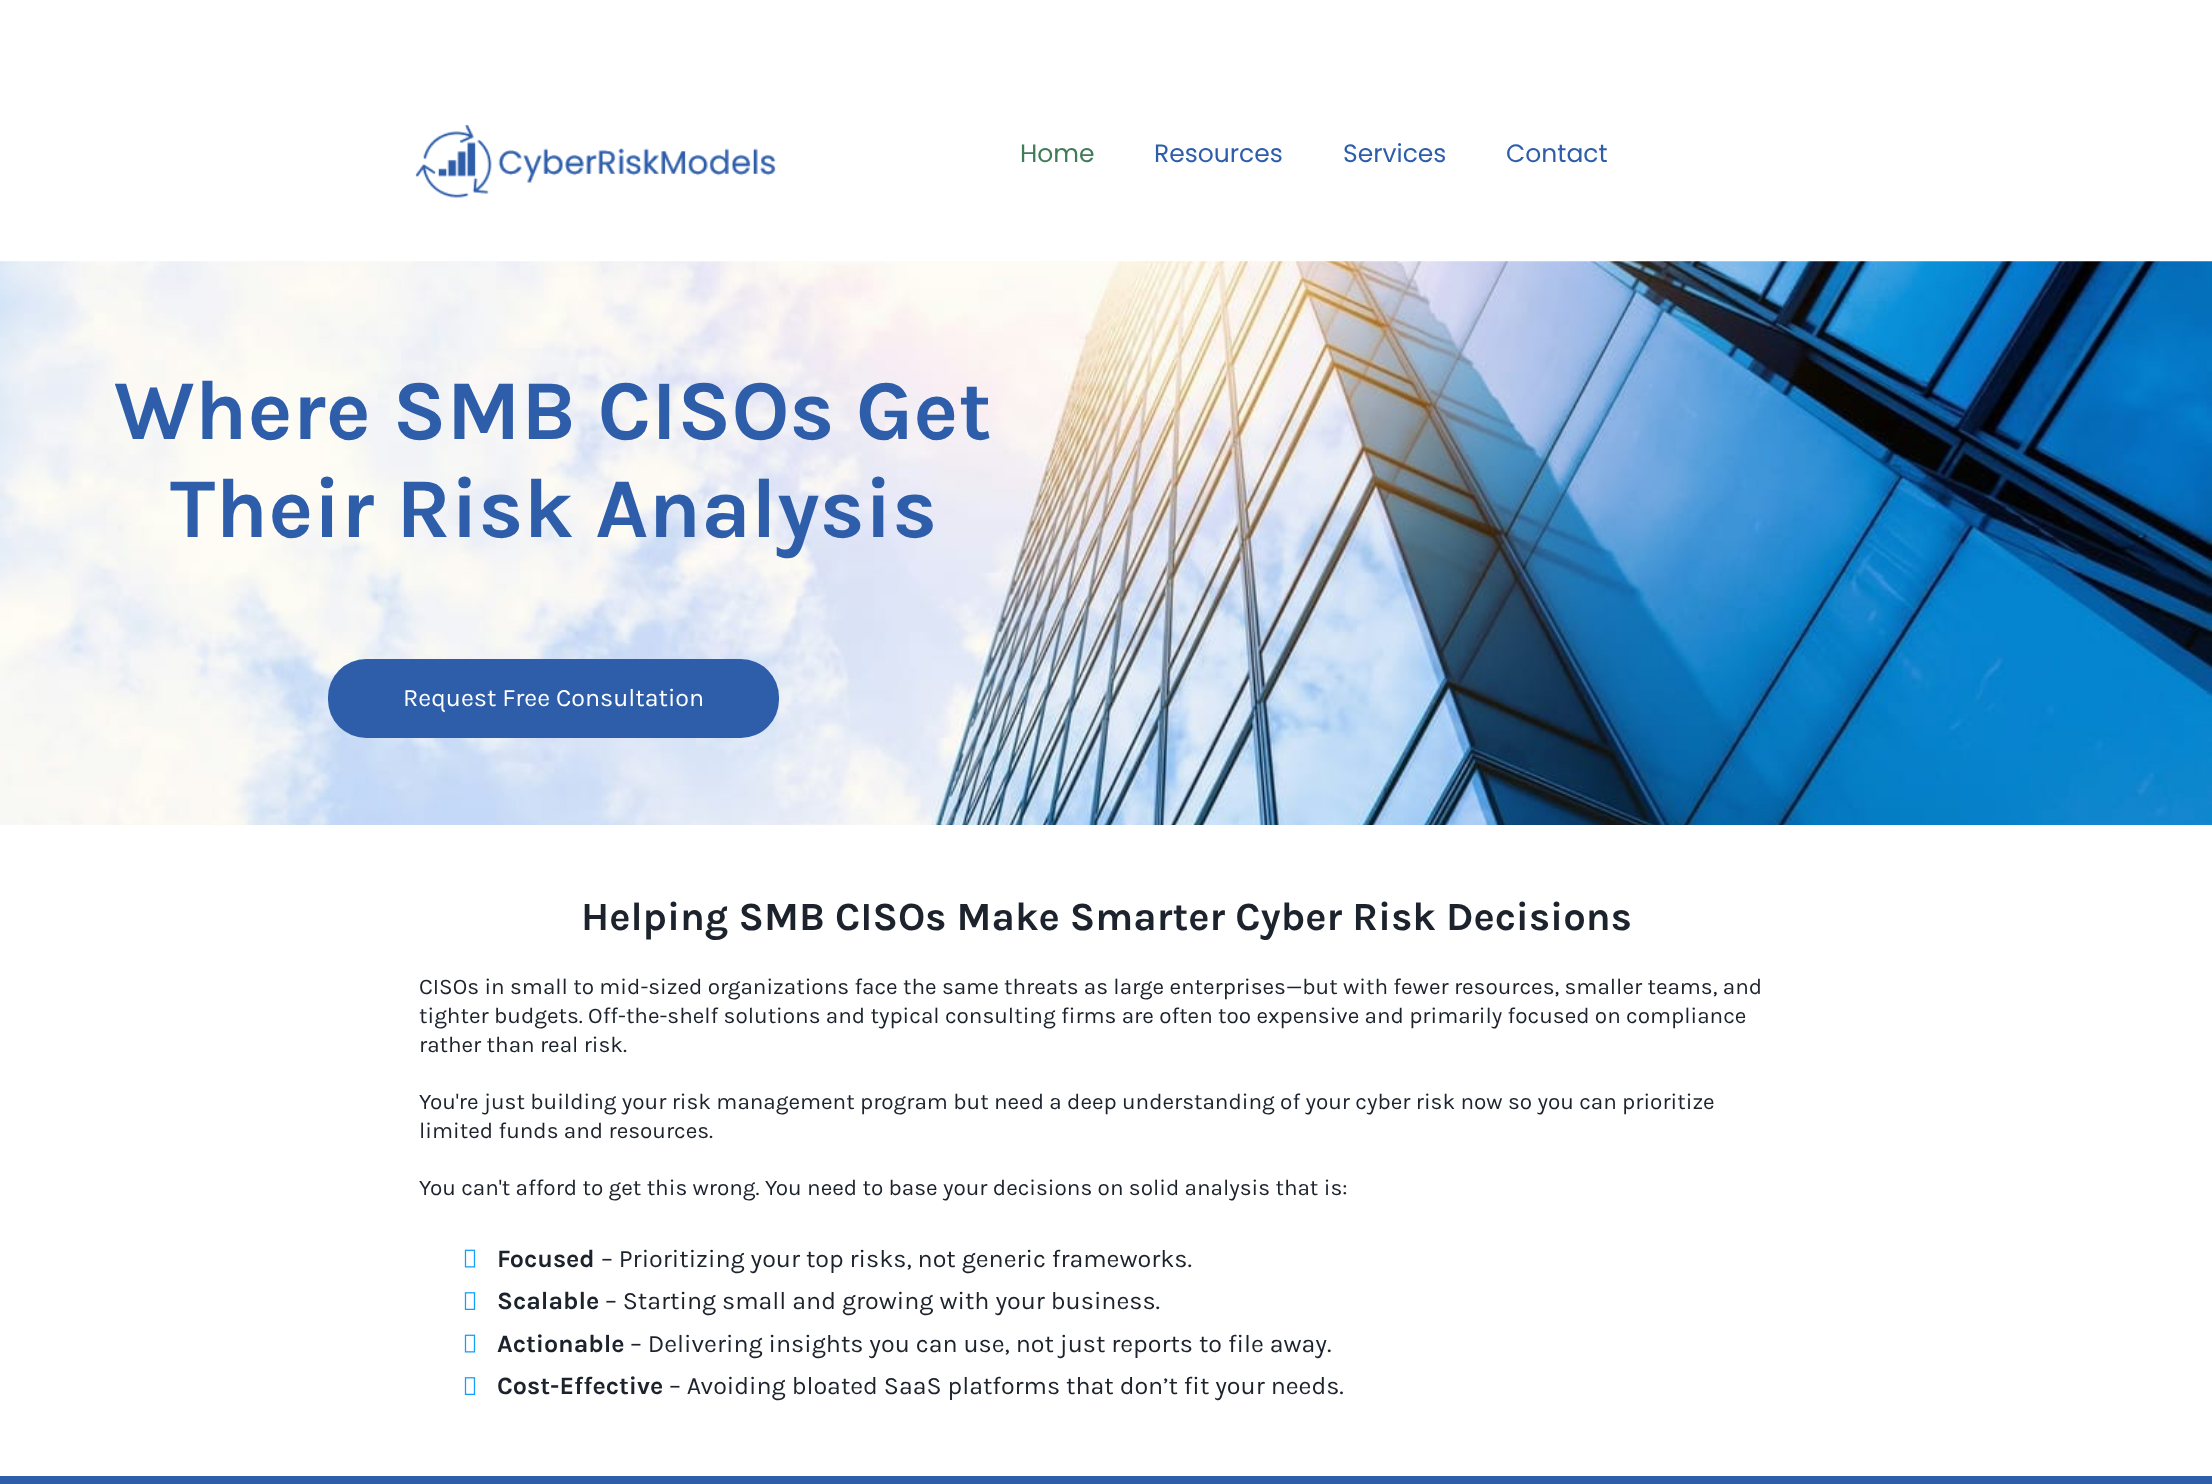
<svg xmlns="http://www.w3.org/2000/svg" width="2212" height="1484">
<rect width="100%" height="100%" fill="#fff"/>
<image x="415" y="124" width="361" height="74" href="media/1.png"/>
<text x="1020" y="162" style="font-family:Poppins;font-size:25px;fill:#417b5a">Home</text>
<text x="1154" y="162" style="font-family:Poppins;font-size:25px;fill:#2e5eaa">Resources</text>
<text x="1343" y="162" style="font-family:Poppins;font-size:25px;fill:#2e5eaa">Services</text>
<text x="1506" y="162" style="font-family:Poppins;font-size:25px;fill:#2e5eaa">Contact</text>
<image x="0" y="261" width="2212" height="564" href="media/2.png"/>
<text x="114" y="439" style="font-family:Karla;font-size:85px;font-weight:bold;fill:#2e5eaa">Where SMB CISOs Get</text>
<text x="170" y="537" style="font-family:Karla;font-size:85px;font-weight:bold;fill:#2e5eaa">Their Risk Analysis</text>
<rect x="328" y="659" width="451" height="79" rx="38" fill="#2e5eaa"/>
<text x="403" y="706" style="font-family:Karla;font-size:25px;fill:#fff">Request Free Consultation</text>
<text x="581" y="930" style="font-family:Karla;font-size:40px;font-weight:bold;fill:#1c232d">Helping SMB CISOs Make Smarter Cyber Risk Decisions</text>
<text x="419" y="994" style="font-family:Karla;font-size:22.5px;fill:#1c232d">CISOs in small to mid-sized organizations face the same threats as large enterprises—but with fewer resources, smaller teams, and</text>
<text x="419" y="1023" style="font-family:Karla;font-size:22.5px;fill:#1c232d">tighter budgets. Off-the-shelf solutions and typical consulting firms are often too expensive and primarily focused on compliance</text>
<text x="419" y="1052" style="font-family:Karla;font-size:22.5px;fill:#1c232d">rather than real risk.</text>
<text x="419" y="1109" style="font-family:Karla;font-size:22.5px;fill:#1c232d">You're just building your risk management program but need a deep understanding of your cyber risk now so you can prioritize</text>
<text x="419" y="1138" style="font-family:Karla;font-size:22.5px;fill:#1c232d">limited funds and resources.</text>
<text x="419" y="1195" style="font-family:Karla;font-size:22.5px;fill:#1c232d">You can't afford to get this wrong. You need to base your decisions on solid analysis that is:</text>
<image x="464" y="1249" width="12" height="19" href="media/3.png"/>
<text x="497" y="1267" style="font-family:Karla;font-size:25px;font-weight:bold;fill:#1c232d">Focused</text>
<text x="601" y="1267" style="font-family:Karla;font-size:25px;fill:#1c232d">– Prioritizing your top risks, not generic frameworks.</text>
<image x="464" y="1292" width="12" height="18" href="media/4.png"/>
<text x="497" y="1309" style="font-family:Karla;font-size:25px;font-weight:bold;fill:#1c232d">Scalable</text>
<text x="605" y="1309" style="font-family:Karla;font-size:25px;fill:#1c232d">– Starting small and growing with your business.</text>
<image x="464" y="1334" width="12" height="19" href="media/3.png"/>
<text x="497" y="1352" style="font-family:Karla;font-size:25px;font-weight:bold;fill:#1c232d">Actionable</text>
<text x="630" y="1352" style="font-family:Karla;font-size:25px;fill:#1c232d">– Delivering insights you can use, not just reports to file away.</text>
<image x="464" y="1377" width="12" height="18" href="media/4.png"/>
<text x="497" y="1394" style="font-family:Karla;font-size:25px;font-weight:bold;fill:#1c232d">Cost-Effective</text>
<text x="669" y="1394" style="font-family:Karla;font-size:25px;fill:#1c232d">– Avoiding bloated SaaS platforms that don’t fit your needs.</text>
<rect y="1476" width="2212" height="8" fill="#2e5eaa"/>
</svg>
